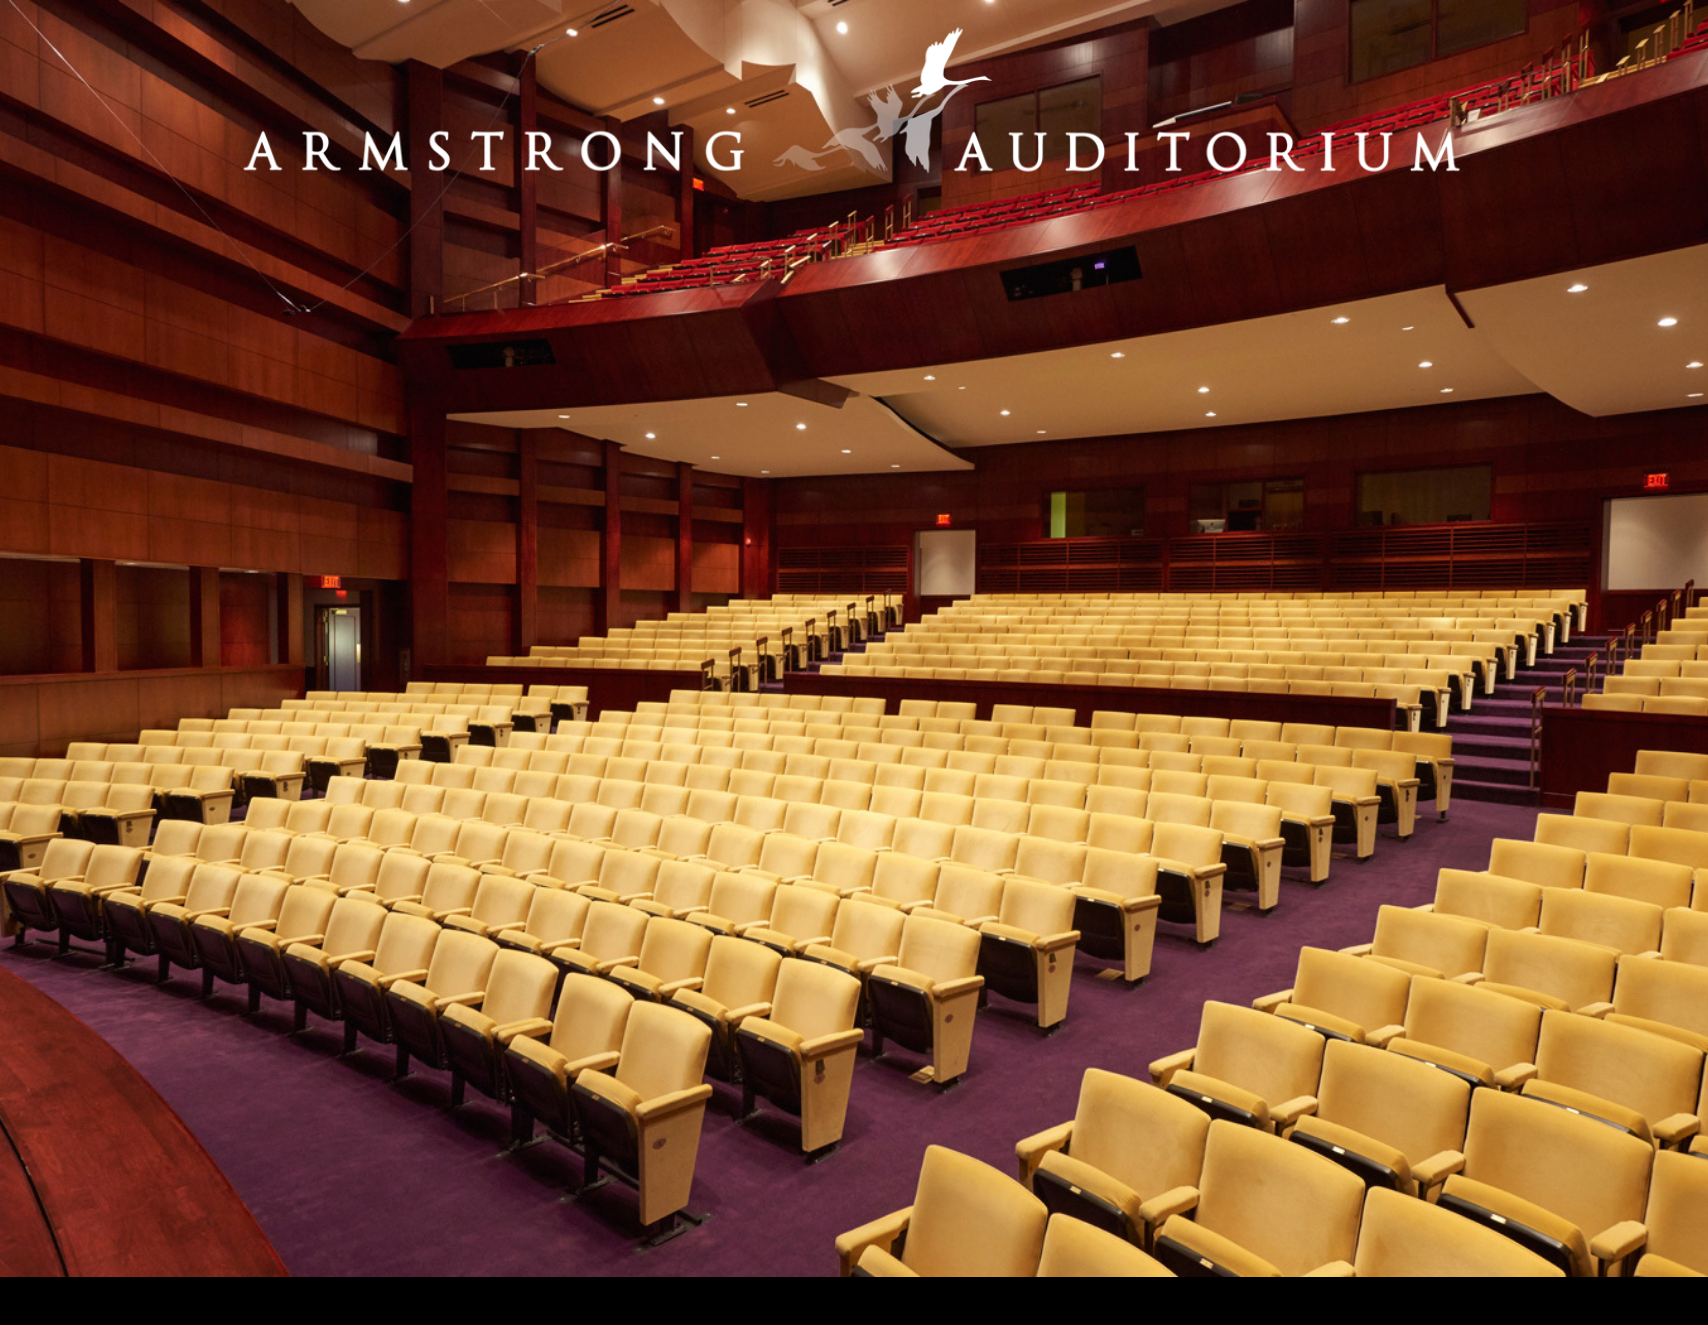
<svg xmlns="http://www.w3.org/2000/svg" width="1708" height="1325">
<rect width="100%" height="100%" fill="#000"/>
<image x="0" y="0" width="1708" height="1277" href="media/1.png"/>
<image x="243" y="27" width="1217" height="147" href="media/2.png"/>
</svg>
